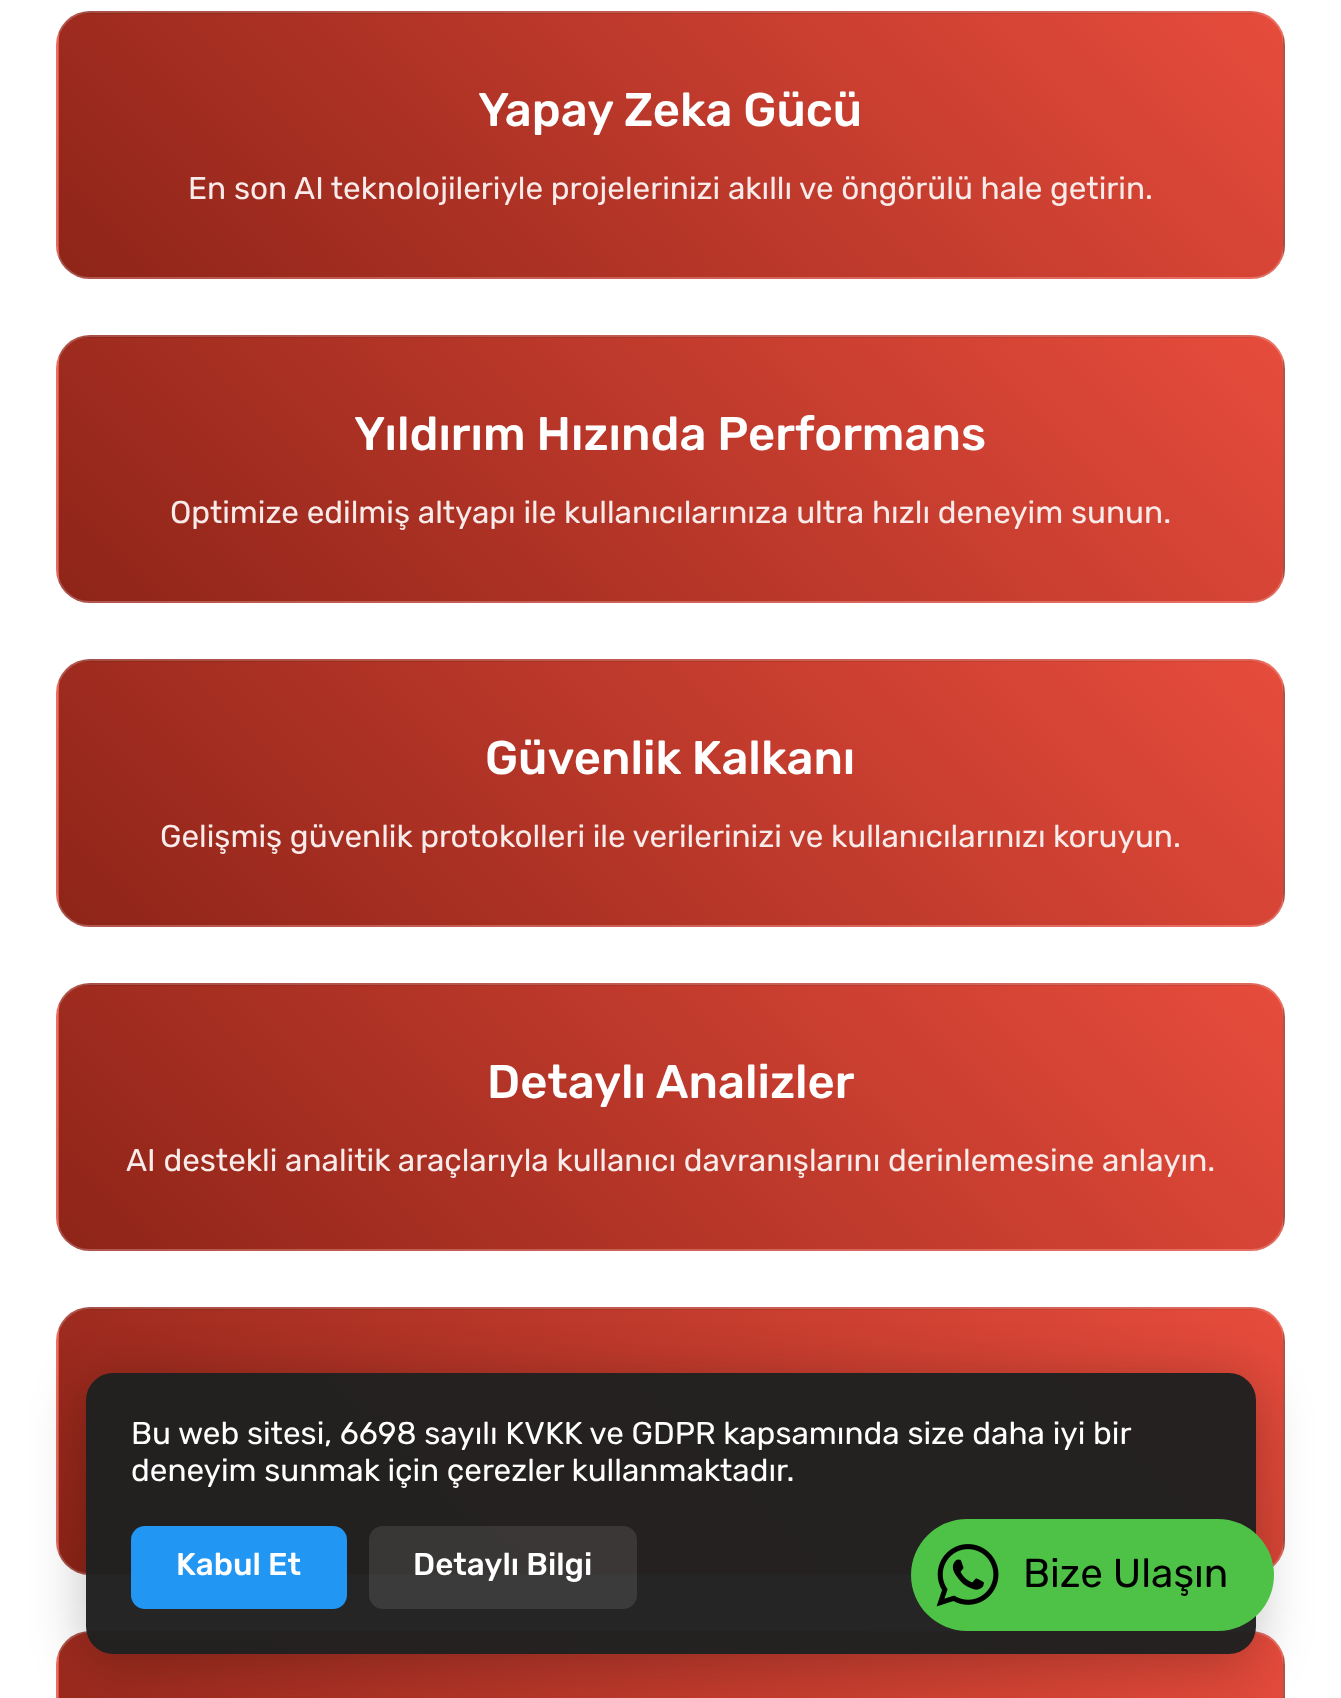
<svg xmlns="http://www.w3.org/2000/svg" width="1341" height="1698">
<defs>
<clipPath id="clip1"><rect x="56" y="11" width="1229" height="268" rx="34"/></clipPath>
<linearGradient id="g1" gradientUnits="userSpaceOnUse" x1="299" y1="254" x2="1042" y2="-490"><stop offset="0" stop-color="#8e2418"/><stop offset="1" stop-color="#e74c3c"/></linearGradient>
<linearGradient id="g2" gradientUnits="userSpaceOnUse" x1="-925" y1="517" x2="-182" y2="-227"><stop offset="0" stop-color="#8e2418"/><stop offset="1" stop-color="#e74c3c"/></linearGradient>
<linearGradient id="g3" gradientUnits="userSpaceOnUse" x1="299" y1="517" x2="1042" y2="-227"><stop offset="0" stop-color="#8e2418"/><stop offset="1" stop-color="#e74c3c"/></linearGradient>
<linearGradient id="g4" gradientUnits="userSpaceOnUse" x1="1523" y1="517" x2="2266" y2="-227"><stop offset="0" stop-color="#8e2418"/><stop offset="1" stop-color="#e74c3c"/></linearGradient>
<linearGradient id="g5" gradientUnits="userSpaceOnUse" x1="299" y1="780" x2="1042" y2="37"><stop offset="0" stop-color="#8e2418"/><stop offset="1" stop-color="#e74c3c"/></linearGradient>
<clipPath id="clip2"><rect x="56" y="335" width="1229" height="268" rx="34"/></clipPath>
<linearGradient id="g6" gradientUnits="userSpaceOnUse" x1="299" y1="578" x2="1042" y2="-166"><stop offset="0" stop-color="#8e2418"/><stop offset="1" stop-color="#e74c3c"/></linearGradient>
<linearGradient id="g7" gradientUnits="userSpaceOnUse" x1="-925" y1="841" x2="-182" y2="97"><stop offset="0" stop-color="#8e2418"/><stop offset="1" stop-color="#e74c3c"/></linearGradient>
<linearGradient id="g8" gradientUnits="userSpaceOnUse" x1="299" y1="841" x2="1042" y2="97"><stop offset="0" stop-color="#8e2418"/><stop offset="1" stop-color="#e74c3c"/></linearGradient>
<linearGradient id="g9" gradientUnits="userSpaceOnUse" x1="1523" y1="841" x2="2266" y2="97"><stop offset="0" stop-color="#8e2418"/><stop offset="1" stop-color="#e74c3c"/></linearGradient>
<linearGradient id="g10" gradientUnits="userSpaceOnUse" x1="299" y1="1104" x2="1042" y2="361"><stop offset="0" stop-color="#8e2418"/><stop offset="1" stop-color="#e74c3c"/></linearGradient>
<clipPath id="clip3"><rect x="56" y="659" width="1229" height="268" rx="34"/></clipPath>
<linearGradient id="g11" gradientUnits="userSpaceOnUse" x1="299" y1="902" x2="1042" y2="158"><stop offset="0" stop-color="#8e2418"/><stop offset="1" stop-color="#e74c3c"/></linearGradient>
<linearGradient id="g12" gradientUnits="userSpaceOnUse" x1="-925" y1="1165" x2="-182" y2="421"><stop offset="0" stop-color="#8e2418"/><stop offset="1" stop-color="#e74c3c"/></linearGradient>
<linearGradient id="g13" gradientUnits="userSpaceOnUse" x1="299" y1="1165" x2="1042" y2="421"><stop offset="0" stop-color="#8e2418"/><stop offset="1" stop-color="#e74c3c"/></linearGradient>
<linearGradient id="g14" gradientUnits="userSpaceOnUse" x1="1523" y1="1165" x2="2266" y2="421"><stop offset="0" stop-color="#8e2418"/><stop offset="1" stop-color="#e74c3c"/></linearGradient>
<linearGradient id="g15" gradientUnits="userSpaceOnUse" x1="299" y1="1428" x2="1042" y2="685"><stop offset="0" stop-color="#8e2418"/><stop offset="1" stop-color="#e74c3c"/></linearGradient>
<clipPath id="clip4"><rect x="56" y="983" width="1229" height="268" rx="34"/></clipPath>
<linearGradient id="g16" gradientUnits="userSpaceOnUse" x1="299" y1="1226" x2="1042" y2="482"><stop offset="0" stop-color="#8e2418"/><stop offset="1" stop-color="#e74c3c"/></linearGradient>
<linearGradient id="g17" gradientUnits="userSpaceOnUse" x1="-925" y1="1489" x2="-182" y2="745"><stop offset="0" stop-color="#8e2418"/><stop offset="1" stop-color="#e74c3c"/></linearGradient>
<linearGradient id="g18" gradientUnits="userSpaceOnUse" x1="299" y1="1489" x2="1042" y2="745"><stop offset="0" stop-color="#8e2418"/><stop offset="1" stop-color="#e74c3c"/></linearGradient>
<linearGradient id="g19" gradientUnits="userSpaceOnUse" x1="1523" y1="1489" x2="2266" y2="745"><stop offset="0" stop-color="#8e2418"/><stop offset="1" stop-color="#e74c3c"/></linearGradient>
<linearGradient id="g20" gradientUnits="userSpaceOnUse" x1="299" y1="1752" x2="1042" y2="1009"><stop offset="0" stop-color="#8e2418"/><stop offset="1" stop-color="#e74c3c"/></linearGradient>
<clipPath id="clip5"><rect x="56" y="1307" width="1229" height="268" rx="34"/></clipPath>
<linearGradient id="g21" gradientUnits="userSpaceOnUse" x1="299" y1="1550" x2="1042" y2="806"><stop offset="0" stop-color="#8e2418"/><stop offset="1" stop-color="#e74c3c"/></linearGradient>
<linearGradient id="g22" gradientUnits="userSpaceOnUse" x1="-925" y1="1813" x2="-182" y2="1069"><stop offset="0" stop-color="#8e2418"/><stop offset="1" stop-color="#e74c3c"/></linearGradient>
<linearGradient id="g23" gradientUnits="userSpaceOnUse" x1="299" y1="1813" x2="1042" y2="1069"><stop offset="0" stop-color="#8e2418"/><stop offset="1" stop-color="#e74c3c"/></linearGradient>
<linearGradient id="g24" gradientUnits="userSpaceOnUse" x1="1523" y1="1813" x2="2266" y2="1069"><stop offset="0" stop-color="#8e2418"/><stop offset="1" stop-color="#e74c3c"/></linearGradient>
<linearGradient id="g25" gradientUnits="userSpaceOnUse" x1="299" y1="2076" x2="1042" y2="1333"><stop offset="0" stop-color="#8e2418"/><stop offset="1" stop-color="#e74c3c"/></linearGradient>
<clipPath id="clip6"><rect x="56" y="1631" width="1229" height="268" rx="34"/></clipPath>
<linearGradient id="g26" gradientUnits="userSpaceOnUse" x1="299" y1="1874" x2="1042" y2="1130"><stop offset="0" stop-color="#8e2418"/><stop offset="1" stop-color="#e74c3c"/></linearGradient>
<linearGradient id="g27" gradientUnits="userSpaceOnUse" x1="-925" y1="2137" x2="-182" y2="1393"><stop offset="0" stop-color="#8e2418"/><stop offset="1" stop-color="#e74c3c"/></linearGradient>
<linearGradient id="g28" gradientUnits="userSpaceOnUse" x1="299" y1="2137" x2="1042" y2="1393"><stop offset="0" stop-color="#8e2418"/><stop offset="1" stop-color="#e74c3c"/></linearGradient>
<linearGradient id="g29" gradientUnits="userSpaceOnUse" x1="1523" y1="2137" x2="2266" y2="1393"><stop offset="0" stop-color="#8e2418"/><stop offset="1" stop-color="#e74c3c"/></linearGradient>
<clipPath id="clip7"><path d="M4 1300h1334v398h-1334zm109 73h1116c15 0 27 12 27 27v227c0 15-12 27-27 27h-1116c-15 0-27-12-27-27v-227c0-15 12-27 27-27z" clip-rule="evenodd"/></clipPath>
</defs>
<rect width="100%" height="100%" fill="#fff"/>
<g clip-path="url(#clip1)">
<rect x="76" y="11" width="1189" height="3" fill="url(#g1)"/>
<rect x="56" y="31" width="3" height="228" fill="url(#g2)"/>
<rect x="59" y="14" width="1224" height="263" fill="url(#g3)"/>
<rect x="1283" y="33" width="2" height="224" fill="url(#g4)"/>
<rect x="78" y="277" width="1185" height="2" fill="url(#g5)"/>
</g>
<rect x="57" y="12" width="1227" height="266" rx="33" fill="none" stroke="#ffffff33" stroke-width="2"/>
<text x="478" y="126" style="font-family:Rubik;font-size:47.25px;font-weight:500;fill:#fff">Yapay Zeka Gücü</text>
<text x="188" y="199" style="font-family:Rubik;font-size:31.5px;fill:#f8ebe9">En son AI teknolojileriyle projelerinizi akıllı ve öngörülü hale</text>
<text x="1050" y="199" style="font-family:Rubik;font-size:31.5px;fill:#f8ebe9">getirin.</text>
<g clip-path="url(#clip2)">
<rect x="76" y="335" width="1189" height="3" fill="url(#g6)"/>
<rect x="56" y="355" width="3" height="228" fill="url(#g7)"/>
<rect x="59" y="338" width="1224" height="263" fill="url(#g8)"/>
<rect x="1283" y="357" width="2" height="224" fill="url(#g9)"/>
<rect x="78" y="601" width="1185" height="2" fill="url(#g10)"/>
</g>
<rect x="57" y="336" width="1227" height="266" rx="33" fill="none" stroke="#ffffff33" stroke-width="2"/>
<text x="354" y="450" style="font-family:Rubik;font-size:47.25px;font-weight:500;fill:#fff">Yıldırım Hızında Performans</text>
<text x="170" y="523" style="font-family:Rubik;font-size:31.5px;fill:#f8ebe9">Optimize edilmiş altyapı ile kullanıcılarınıza ultra hızlı deneyim</text>
<text x="1071" y="523" style="font-family:Rubik;font-size:31.5px;fill:#f8ebe9">sunun.</text>
<g clip-path="url(#clip3)">
<rect x="76" y="659" width="1189" height="3" fill="url(#g11)"/>
<rect x="56" y="679" width="3" height="228" fill="url(#g12)"/>
<rect x="59" y="662" width="1224" height="263" fill="url(#g13)"/>
<rect x="1283" y="681" width="2" height="224" fill="url(#g14)"/>
<rect x="78" y="925" width="1185" height="2" fill="url(#g15)"/>
</g>
<rect x="57" y="660" width="1227" height="266" rx="33" fill="none" stroke="#ffffff33" stroke-width="2"/>
<text x="485" y="774" style="font-family:Rubik;font-size:47.25px;font-weight:500;fill:#fff">Güvenlik Kalkanı</text>
<text x="160" y="847" style="font-family:Rubik;font-size:31.5px;fill:#f8ebe9">Gelişmiş güvenlik protokolleri ile verilerinizi ve kullanıcılarınızı</text>
<text x="1053" y="847" style="font-family:Rubik;font-size:31.5px;fill:#f8ebe9">koruyun.</text>
<g clip-path="url(#clip4)">
<rect x="76" y="983" width="1189" height="3" fill="url(#g16)"/>
<rect x="56" y="1003" width="3" height="228" fill="url(#g17)"/>
<rect x="59" y="986" width="1224" height="263" fill="url(#g18)"/>
<rect x="1283" y="1005" width="2" height="224" fill="url(#g19)"/>
<rect x="78" y="1249" width="1185" height="2" fill="url(#g20)"/>
</g>
<rect x="57" y="984" width="1227" height="266" rx="33" fill="none" stroke="#ffffff33" stroke-width="2"/>
<text x="487" y="1098" style="font-family:Rubik;font-size:47.25px;font-weight:500;fill:#fff">Detaylı Analizler</text>
<text x="126" y="1171" style="font-family:Rubik;font-size:31.5px;fill:#f8ebe9">AI destekli analitik araçlarıyla kullanıcı davranışlarını derinlemesine</text>
<text x="1102" y="1171" style="font-family:Rubik;font-size:31.5px;fill:#f8ebe9">anlayın.</text>
<g clip-path="url(#clip5)">
<rect x="76" y="1307" width="1189" height="3" fill="url(#g21)"/>
<rect x="56" y="1327" width="3" height="228" fill="url(#g22)"/>
<rect x="59" y="1310" width="1224" height="263" fill="url(#g23)"/>
<rect x="1283" y="1329" width="2" height="224" fill="url(#g24)"/>
<rect x="78" y="1573" width="834" height="2" fill="url(#g25)"/>
</g>
<rect x="57" y="1308" width="1227" height="266" rx="33" fill="none" stroke="#ffffff33" stroke-width="2"/>
<g clip-path="url(#clip6)">
<rect x="76" y="1631" width="1189" height="3" fill="url(#g26)"/>
<rect x="56" y="1651" width="3" height="47" fill="url(#g27)"/>
<rect x="59" y="1634" width="1224" height="64" fill="url(#g28)"/>
<rect x="1283" y="1653" width="2" height="45" fill="url(#g29)"/>
</g>
<rect x="57" y="1632" width="1227" height="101" rx="33" fill="none" stroke="#ffffff33" stroke-width="2"/>
<g clip-path="url(#clip7)">
<rect x="86" y="1382" width="1170" height="281" rx="27" fill="#00000040" filter="blur(27px)"/>
</g>
<rect x="86" y="1373" width="1170" height="281" rx="27" fill="#212121fa"/>
<text x="131" y="1444" style="font-family:Rubik;font-size:31.5px;fill:#fff">Bu web sitesi, 6698 sayılı KVKK ve GDPR kapsamında size daha iyi bir</text>
<text x="131" y="1481" style="font-family:Rubik;font-size:31.5px;fill:#fff">deneyim sunmak için çerezler kullanmaktadır.</text>
<rect x="131" y="1526" width="216" height="83" rx="14" fill="#2196f3"/>
<text x="176" y="1575" style="font-family:Rubik;font-size:31.5px;font-weight:500;fill:#fff">Kabul Et</text>
<rect x="369" y="1526" width="268" height="83" rx="14" fill="#ffffff1a"/>
<text x="413" y="1575" style="font-family:Rubik;font-size:31.5px;font-weight:500;fill:#fff">Detaylı Bilgi</text>
<rect x="911" y="1519" width="363" height="112" rx="56" fill="#4dc247"/>
<image x="936" y="1544" width="63" height="63" href="media/1.png"/>
<text x="1023" y="1587" style="font-family:Rubik;font-size:40.5px;fill:#000">Bize Ulaşın</text>
</svg>
